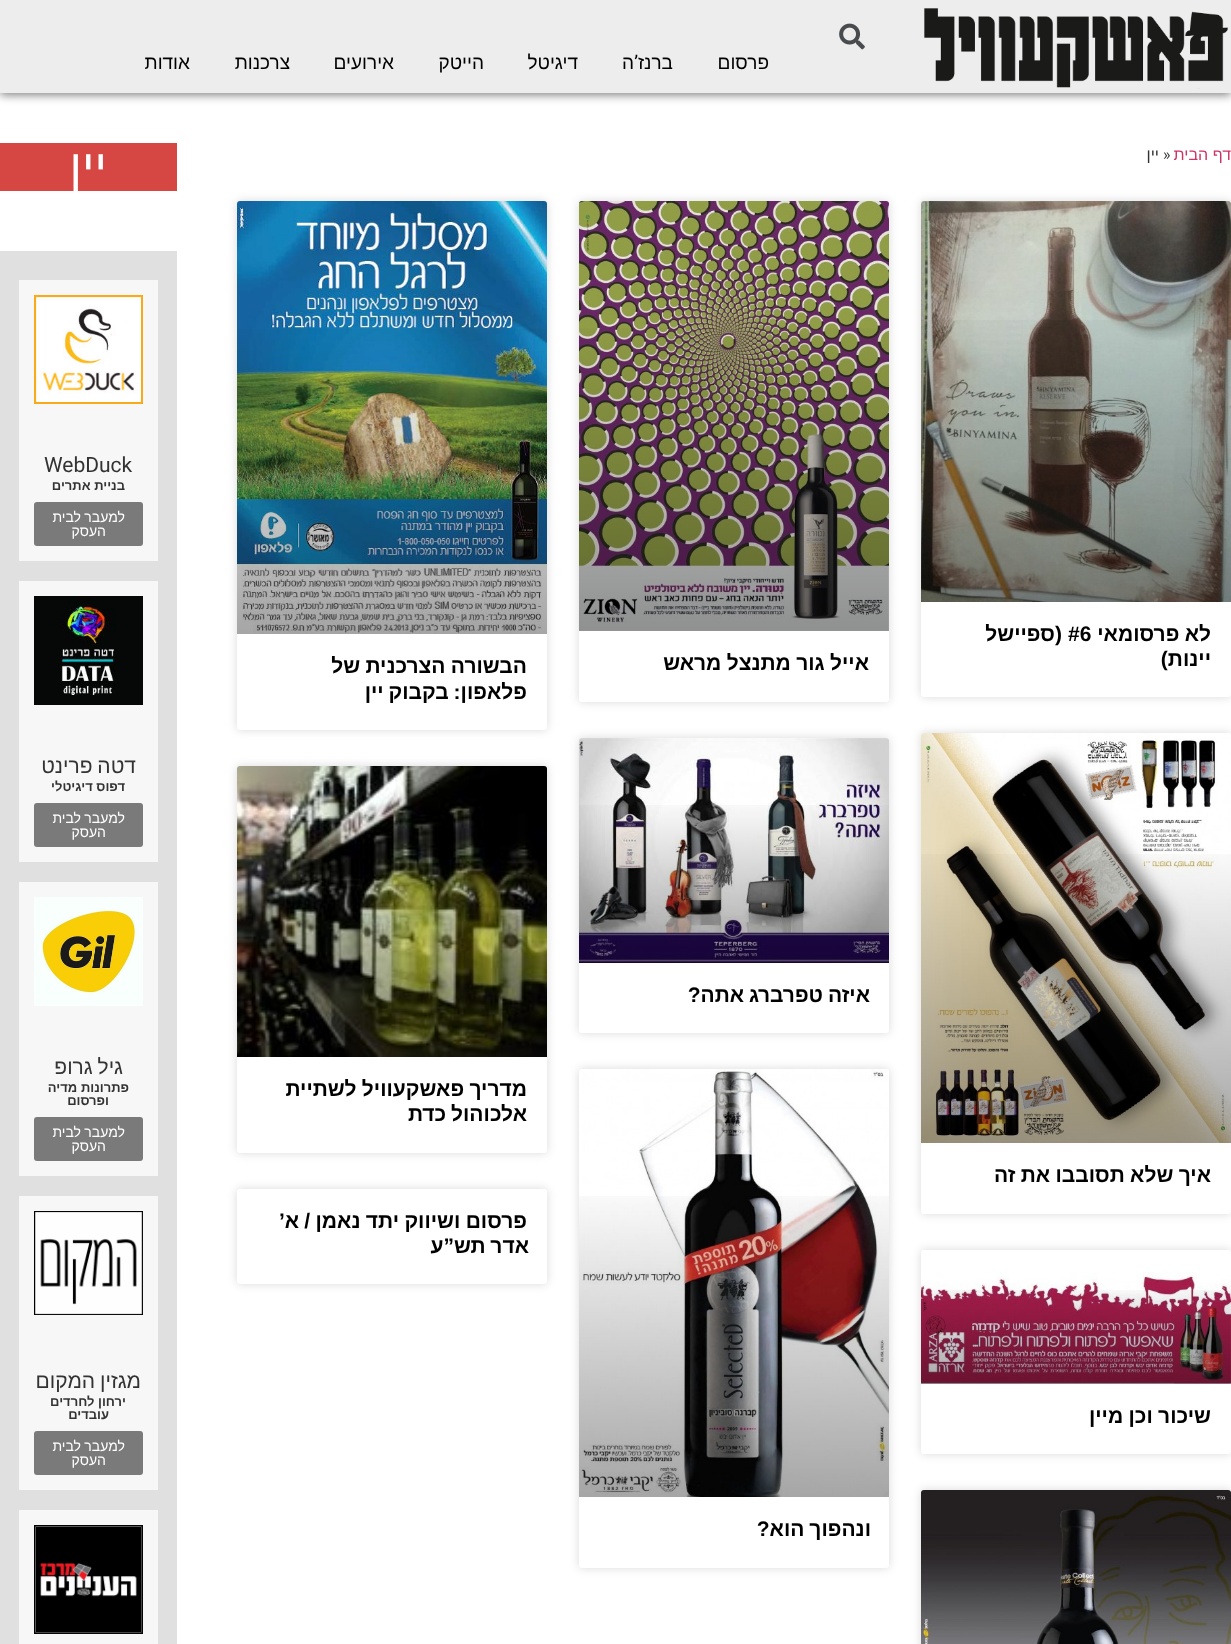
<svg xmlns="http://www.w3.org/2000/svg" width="1231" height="1644">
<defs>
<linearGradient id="g1" gradientUnits="userSpaceOnUse" x1="1076" y1="602" x2="1076" y2="201"><stop offset="0" stop-color="#000" stop-opacity="0.35"/><stop offset="0.75" stop-color="#000" stop-opacity="0"/></linearGradient>
<linearGradient id="g2" gradientUnits="userSpaceOnUse" x1="734" y1="631" x2="734" y2="201"><stop offset="0" stop-color="#000" stop-opacity="0.35"/><stop offset="0.75" stop-color="#000" stop-opacity="0"/></linearGradient>
<linearGradient id="g3" gradientUnits="userSpaceOnUse" x1="392" y1="634" x2="392" y2="201"><stop offset="0" stop-color="#000" stop-opacity="0.35"/><stop offset="0.75" stop-color="#000" stop-opacity="0"/></linearGradient>
<linearGradient id="g4" gradientUnits="userSpaceOnUse" x1="734" y1="963" x2="734" y2="738"><stop offset="0" stop-color="#000" stop-opacity="0.35"/><stop offset="0.75" stop-color="#000" stop-opacity="0"/></linearGradient>
<linearGradient id="g5" gradientUnits="userSpaceOnUse" x1="392" y1="1057" x2="392" y2="766"><stop offset="0" stop-color="#000" stop-opacity="0.35"/><stop offset="0.75" stop-color="#000" stop-opacity="0"/></linearGradient>
<linearGradient id="g6" gradientUnits="userSpaceOnUse" x1="1076" y1="1143" x2="1076" y2="733"><stop offset="0" stop-color="#000" stop-opacity="0.35"/><stop offset="0.75" stop-color="#000" stop-opacity="0"/></linearGradient>
<linearGradient id="g7" gradientUnits="userSpaceOnUse" x1="1076" y1="1384" x2="1076" y2="1250"><stop offset="0" stop-color="#000" stop-opacity="0.35"/><stop offset="0.75" stop-color="#000" stop-opacity="0"/></linearGradient>
<linearGradient id="g8" gradientUnits="userSpaceOnUse" x1="1076" y1="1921" x2="1076" y2="1490"><stop offset="0" stop-color="#000" stop-opacity="0.35"/><stop offset="0.75" stop-color="#000" stop-opacity="0"/></linearGradient>
<linearGradient id="g9" gradientUnits="userSpaceOnUse" x1="734" y1="1497" x2="734" y2="1069"><stop offset="0" stop-color="#000" stop-opacity="0.35"/><stop offset="0.75" stop-color="#000" stop-opacity="0"/></linearGradient>
</defs>
<rect width="100%" height="100%" fill="#fff"/>
<rect y="2" width="1231" height="93" fill="#00000080" filter="blur(5px)"/>
<rect width="1231" height="93" fill="#ededed"/>
<image x="924" y="8" width="305" height="81" href="media/1.png"/>
<image x="839" y="23" width="26" height="27" href="media/2.png"/>
<text x="769" y="69" style="font-family:Liberation Sans;font-size:19px;direction:rtl;fill:#000">פרסום</text>
<text x="673" y="69" style="font-family:Liberation Sans;font-size:19px;direction:rtl;fill:#000">ברנז</text>
<text x="638" y="69" style="font-family:Roboto;font-size:19px;direction:rtl;fill:#000">’</text>
<text x="634" y="69" style="font-family:Liberation Sans;font-size:19px;direction:rtl;fill:#000">ה</text>
<text x="578" y="69" style="font-family:Liberation Sans;font-size:19px;direction:rtl;fill:#000">דיגיטל</text>
<text x="484" y="69" style="font-family:Liberation Sans;font-size:19px;direction:rtl;fill:#000">הייטק</text>
<text x="394" y="69" style="font-family:Liberation Sans;font-size:19px;direction:rtl;fill:#000">אירועים</text>
<text x="290" y="69" style="font-family:Liberation Sans;font-size:19px;direction:rtl;fill:#000">צרכנות</text>
<text x="190" y="69" style="font-family:Liberation Sans;font-size:19px;direction:rtl;fill:#000">אודות</text>
<text x="1231" y="160" style="font-family:Liberation Sans;font-size:16px;direction:rtl;fill:#c36">דף הבית</text>
<text x="1163" y="160" style="font-family:Roboto;font-size:16px;fill:#333">»</text>
<text x="1159" y="160" style="font-family:Liberation Sans;font-size:16px;direction:rtl;fill:#333">יין</text>
<rect x="921" y="201" width="310" height="496" rx="3" fill="#00000026" filter="blur(5px)"/>
<rect x="921" y="201" width="310" height="496" rx="3" fill="#fff"/>
<image x="921" y="201" width="310" height="401" href="media/3.png"/>
<rect x="921" y="320" width="310" height="282" fill="url(#g1)"/>
<text x="1211" y="641" word-spacing="-0.5" style="font-family:Liberation Sans;font-size:21px;font-weight:bold;direction:rtl;fill:#000">לא פרסומאי</text>
<text x="1068" y="641" style="font-family:Liberation Sans;font-size:21px;font-weight:bold;fill:#000">#6</text>
<text x="1062" y="641" style="font-family:Liberation Sans;font-size:21px;font-weight:bold;direction:rtl;fill:#000">(ספיישל</text>
<text x="1211" y="666" style="font-family:Liberation Sans;font-size:21px;font-weight:bold;direction:rtl;fill:#000">יינות)</text>
<rect x="579" y="201" width="310" height="501" rx="3" fill="#00000026" filter="blur(5px)"/>
<rect x="579" y="201" width="310" height="501" rx="3" fill="#fff"/>
<image x="579" y="201" width="310" height="430" href="media/4.png"/>
<rect x="579" y="328" width="310" height="303" fill="url(#g2)"/>
<text x="869" y="670" word-spacing="-0.5" style="font-family:Liberation Sans;font-size:21px;font-weight:bold;direction:rtl;fill:#000">אייל גור מתנצל מראש</text>
<rect x="237" y="201" width="310" height="529" rx="3" fill="#00000026" filter="blur(5px)"/>
<rect x="237" y="201" width="310" height="529" rx="3" fill="#fff"/>
<image x="237" y="201" width="310" height="433" href="media/5.png"/>
<rect x="237" y="329" width="310" height="305" fill="url(#g3)"/>
<text x="527" y="673" word-spacing="-0.5" style="font-family:Liberation Sans;font-size:21px;font-weight:bold;direction:rtl;fill:#000">הבשורה הצרכנית של</text>
<text x="527" y="699" word-spacing="-1" style="font-family:Liberation Sans;font-size:21px;font-weight:bold;direction:rtl;fill:#000">פלאפון: בקבוק יין</text>
<rect x="579" y="738" width="310" height="295" rx="3" fill="#00000026" filter="blur(5px)"/>
<rect x="579" y="738" width="310" height="295" rx="3" fill="#fff"/>
<image x="579" y="738" width="310" height="225" href="media/6.png"/>
<rect x="579" y="805" width="310" height="158" fill="url(#g4)"/>
<text x="870" y="1002" word-spacing="-1" style="font-family:Liberation Sans;font-size:21px;font-weight:bold;direction:rtl;fill:#000">איזה טפרברג אתה?</text>
<rect x="237" y="766" width="310" height="387" rx="3" fill="#00000026" filter="blur(5px)"/>
<rect x="237" y="766" width="310" height="387" rx="3" fill="#fff"/>
<image x="237" y="766" width="310" height="291" href="media/7.png"/>
<rect x="237" y="852" width="310" height="205" fill="url(#g5)"/>
<text x="527" y="1096" word-spacing="-0.5" style="font-family:Liberation Sans;font-size:21px;font-weight:bold;direction:rtl;fill:#000">מדריך פאשקעוויל לשתיית</text>
<text x="527" y="1121" word-spacing="-1" style="font-family:Liberation Sans;font-size:21px;font-weight:bold;direction:rtl;fill:#000">אלכוהול כדת</text>
<rect x="921" y="733" width="310" height="481" rx="3" fill="#00000026" filter="blur(5px)"/>
<rect x="921" y="733" width="310" height="481" rx="3" fill="#fff"/>
<image x="921" y="733" width="310" height="410" href="media/8.png"/>
<rect x="921" y="854" width="310" height="289" fill="url(#g6)"/>
<text x="1211" y="1182" word-spacing="-0.5" style="font-family:Liberation Sans;font-size:21px;font-weight:bold;direction:rtl;fill:#000">איך שלא תסובבו את זה</text>
<rect x="237" y="1189" width="310" height="95" rx="3" fill="#00000026" filter="blur(5px)"/>
<rect x="237" y="1189" width="310" height="95" rx="3" fill="#fff"/>
<text x="527" y="1228" word-spacing="-0.5" style="font-family:Liberation Sans;font-size:21px;font-weight:bold;direction:rtl;fill:#000">פרסום ושיווק יתד נאמן / א’</text>
<text x="529" y="1253" word-spacing="-1" style="font-family:Liberation Sans;font-size:21px;font-weight:bold;direction:rtl;fill:#000">אדר תש”ע</text>
<rect x="921" y="1250" width="310" height="204" rx="3" fill="#00000026" filter="blur(5px)"/>
<rect x="921" y="1250" width="310" height="204" rx="3" fill="#fff"/>
<image x="921" y="1272" width="310" height="112" href="media/9.png"/>
<rect x="921" y="1290" width="310" height="94" fill="url(#g7)"/>
<text x="1211" y="1423" word-spacing="-0.5" style="font-family:Liberation Sans;font-size:21px;font-weight:bold;direction:rtl;fill:#000">שיכור וכן מיין</text>
<rect x="921" y="1490" width="310" height="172" rx="3" fill="#00000026" filter="blur(5px)"/>
<image x="921" y="1490" width="310" height="154" href="media/10.png"/>
<rect x="921" y="1619" width="310" height="25" fill="url(#g8)"/>
<rect x="579" y="1069" width="310" height="499" rx="3" fill="#00000026" filter="blur(5px)"/>
<rect x="579" y="1069" width="310" height="499" rx="3" fill="#fff"/>
<image x="581" y="1069" width="308" height="428" href="media/11.png"/>
<rect x="579" y="1196" width="310" height="301" fill="url(#g9)"/>
<text x="871" y="1536" word-spacing="-1" style="font-family:Liberation Sans;font-size:21px;font-weight:bold;direction:rtl;fill:#000">ונהפוך הוא?</text>
<rect y="143" width="177" height="48" fill="#d64743"/>
<text x="107" y="183" style="font-family:Liberation Sans;font-size:48px;direction:rtl;fill:#fff">יין</text>
<rect y="251" width="177" height="1393" fill="#e0e0e0"/>
<rect x="19" y="280" width="139" height="281" fill="#f7f7f7"/>
<image x="34" y="295" width="109" height="109" href="media/12.png"/>
<text x="44" y="472" style="font-family:Roboto;font-size:21px;fill:#333">WebDuck</text>
<text x="125" y="490" style="font-family:Liberation Sans;font-size:13px;font-weight:bold;direction:rtl;fill:#333">בניית אתרים</text>
<rect x="34" y="502" width="109" height="44" rx="3" fill="#7a7a7a"/>
<text x="125" y="522" word-spacing="-0.5" style="font-family:Liberation Sans;font-size:14px;direction:rtl;fill:#fff">למעבר לבית</text>
<text x="106" y="536" style="font-family:Liberation Sans;font-size:14px;direction:rtl;fill:#fff">העסק</text>
<rect x="19" y="581" width="139" height="281" fill="#f7f7f7"/>
<image x="34" y="596" width="109" height="109" href="media/13.png"/>
<text x="136" y="773" word-spacing="-1" style="font-family:Liberation Sans;font-size:21px;direction:rtl;fill:#333">דטה פרינט</text>
<text x="125" y="791" style="font-family:Liberation Sans;font-size:13px;font-weight:bold;direction:rtl;fill:#333">דפוס דיגיטלי</text>
<rect x="34" y="803" width="109" height="44" rx="3" fill="#7a7a7a"/>
<text x="125" y="823" word-spacing="-0.5" style="font-family:Liberation Sans;font-size:14px;direction:rtl;fill:#fff">למעבר לבית</text>
<text x="106" y="837" style="font-family:Liberation Sans;font-size:14px;direction:rtl;fill:#fff">העסק</text>
<rect x="19" y="882" width="139" height="294" fill="#f7f7f7"/>
<image x="34" y="897" width="109" height="109" href="media/14.png"/>
<text x="123" y="1074" word-spacing="-1" style="font-family:Liberation Sans;font-size:21px;direction:rtl;fill:#333">גיל גרופ</text>
<text x="129" y="1092" style="font-family:Liberation Sans;font-size:13px;font-weight:bold;direction:rtl;fill:#333">פתרונות מדיה</text>
<text x="109" y="1105" style="font-family:Liberation Sans;font-size:13px;font-weight:bold;direction:rtl;fill:#333">ופרסום</text>
<rect x="34" y="1117" width="109" height="44" rx="3" fill="#7a7a7a"/>
<text x="125" y="1137" word-spacing="-0.5" style="font-family:Liberation Sans;font-size:14px;direction:rtl;fill:#fff">למעבר לבית</text>
<text x="106" y="1151" style="font-family:Liberation Sans;font-size:14px;direction:rtl;fill:#fff">העסק</text>
<rect x="19" y="1196" width="139" height="294" fill="#f7f7f7"/>
<image x="34" y="1211" width="109" height="104" href="media/15.png"/>
<text x="141" y="1388" word-spacing="-1" style="font-family:Liberation Sans;font-size:21px;direction:rtl;fill:#333">מגזין המקום</text>
<text x="126" y="1406" style="font-family:Liberation Sans;font-size:13px;font-weight:bold;direction:rtl;fill:#333">ירחון לחרדים</text>
<text x="109" y="1419" style="font-family:Liberation Sans;font-size:13px;font-weight:bold;direction:rtl;fill:#333">עובדים</text>
<rect x="34" y="1431" width="109" height="44" rx="3" fill="#7a7a7a"/>
<text x="125" y="1451" word-spacing="-0.5" style="font-family:Liberation Sans;font-size:14px;direction:rtl;fill:#fff">למעבר לבית</text>
<text x="106" y="1465" style="font-family:Liberation Sans;font-size:14px;direction:rtl;fill:#fff">העסק</text>
<rect x="19" y="1510" width="139" height="134" fill="#f7f7f7"/>
<image x="34" y="1525" width="109" height="109" href="media/16.png"/>
</svg>
